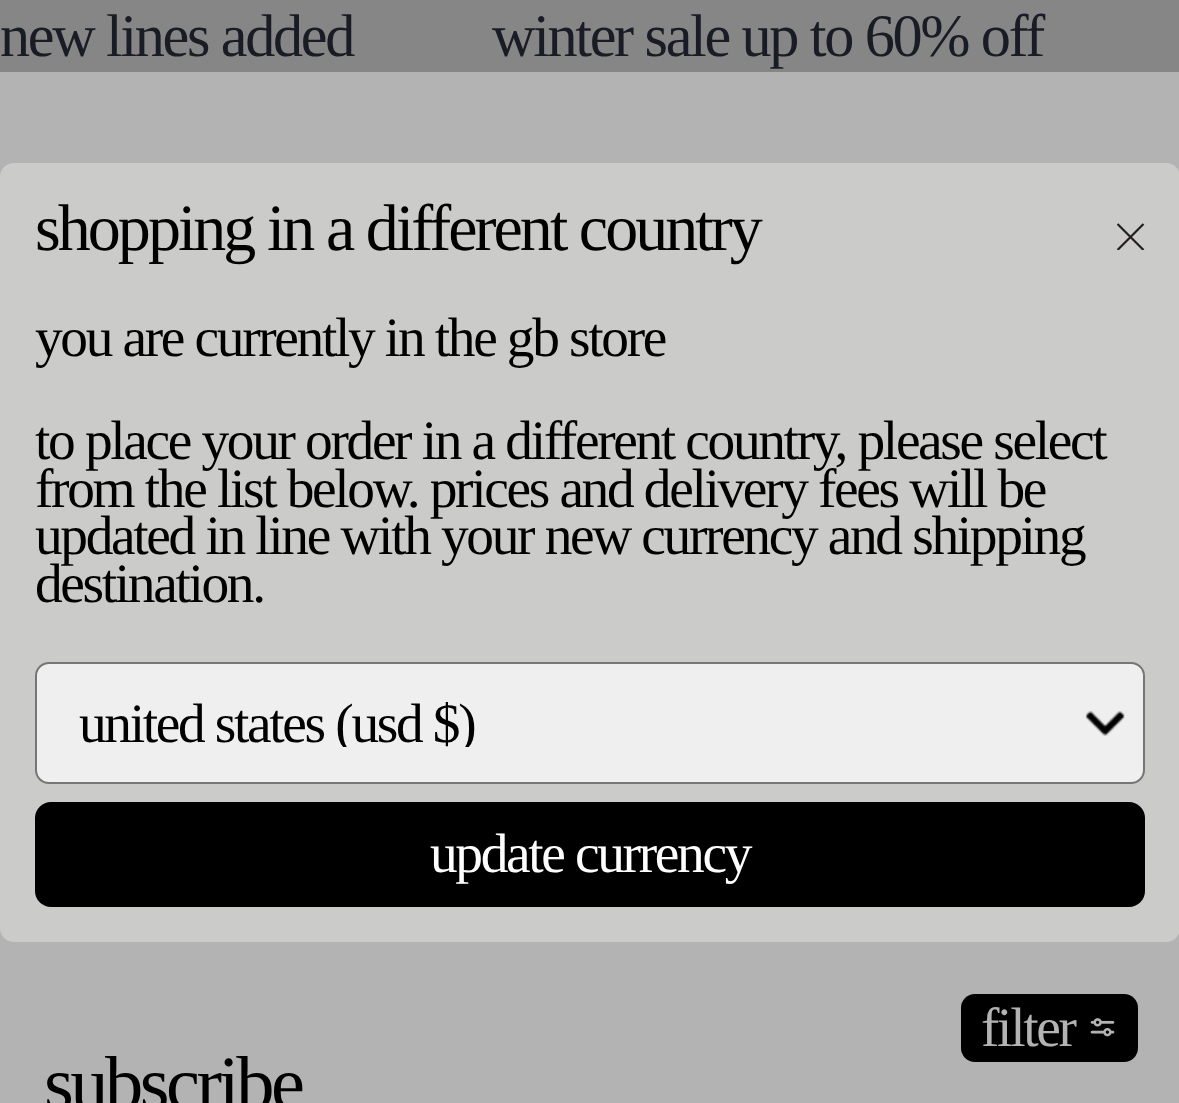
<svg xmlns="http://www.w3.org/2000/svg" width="1179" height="1103">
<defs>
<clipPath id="clip1"><rect x="1117" y="222" width="28" height="28"/></clipPath>
<clipPath id="clip2"><rect x="79" y="698" width="1064" height="49"/></clipPath>
</defs>
<rect width="100%" height="100%" fill="#b3b3b3"/>
<rect width="1179" height="72" fill="#868686"/>
<text x="0" y="56" style="font-family:Liberation Serif;font-size:60.25px;letter-spacing:-2.35px;fill:#191c24">new lines added</text>
<text x="492" y="56" style="font-family:Liberation Serif;font-size:60.25px;letter-spacing:-2.35px;fill:#191c24">winter sale up to 60% off</text>
<rect y="163" width="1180" height="779" rx="14" fill="#cbcbca"/>
<text x="35" y="250" style="font-family:Liberation Serif;font-size:66px;letter-spacing:-2.95px;fill:#000">shopping in a different country</text>
<g clip-path="url(#clip1)">
<path d="M1117.5 224l26 26m0-26l-26 26" fill="none" stroke="#231f20" stroke-width="2.2"/>
</g>
<text x="35" y="356" style="font-family:Liberation Serif;font-size:55.4px;letter-spacing:-2.35px;fill:#000">you are currently in the gb store</text>
<text x="35" y="459" style="font-family:Liberation Serif;font-size:55.4px;letter-spacing:-2.35px;fill:#000">to place your order in a different country, please select</text>
<text x="35" y="507" style="font-family:Liberation Serif;font-size:55.4px;letter-spacing:-2.35px;fill:#000">from the list below. prices and delivery fees will be</text>
<text x="35" y="554" style="font-family:Liberation Serif;font-size:55.4px;letter-spacing:-2.35px;fill:#000">updated in line with your new currency and shipping</text>
<text x="35" y="602" style="font-family:Liberation Serif;font-size:55.4px;letter-spacing:-2.35px;fill:#000">destination.</text>
<rect x="36" y="663" width="1108" height="120" rx="13" fill="#efefef" stroke="#767676" stroke-width="2"/>
<g clip-path="url(#clip2)">
<text x="79" y="742" style="font-family:Liberation Serif;font-size:55.4px;letter-spacing:-2.35px;fill:#000">united states (usd $)</text>
</g>
<image x="1085" y="711" width="40" height="25" href="media/1.png"/>
<rect x="35" y="802" width="1110" height="105" rx="16" fill="#000"/>
<text x="430" y="872" style="font-family:Liberation Serif;font-size:55.4px;letter-spacing:-2.35px;fill:#fff">update currency</text>
<rect x="961" y="994" width="177" height="68" rx="14" fill="#000"/>
<text x="981" y="1046" style="font-family:Liberation Serif;font-size:55.4px;letter-spacing:-2.35px;fill:#b3b3b3">filter</text>
<image x="1090" y="1018" width="25" height="19" href="media/2.png"/>
<text x="44" y="1109" style="font-family:Liberation Serif;font-size:76.5px;letter-spacing:-3.5px;fill:#000">subscribe</text>
</svg>
